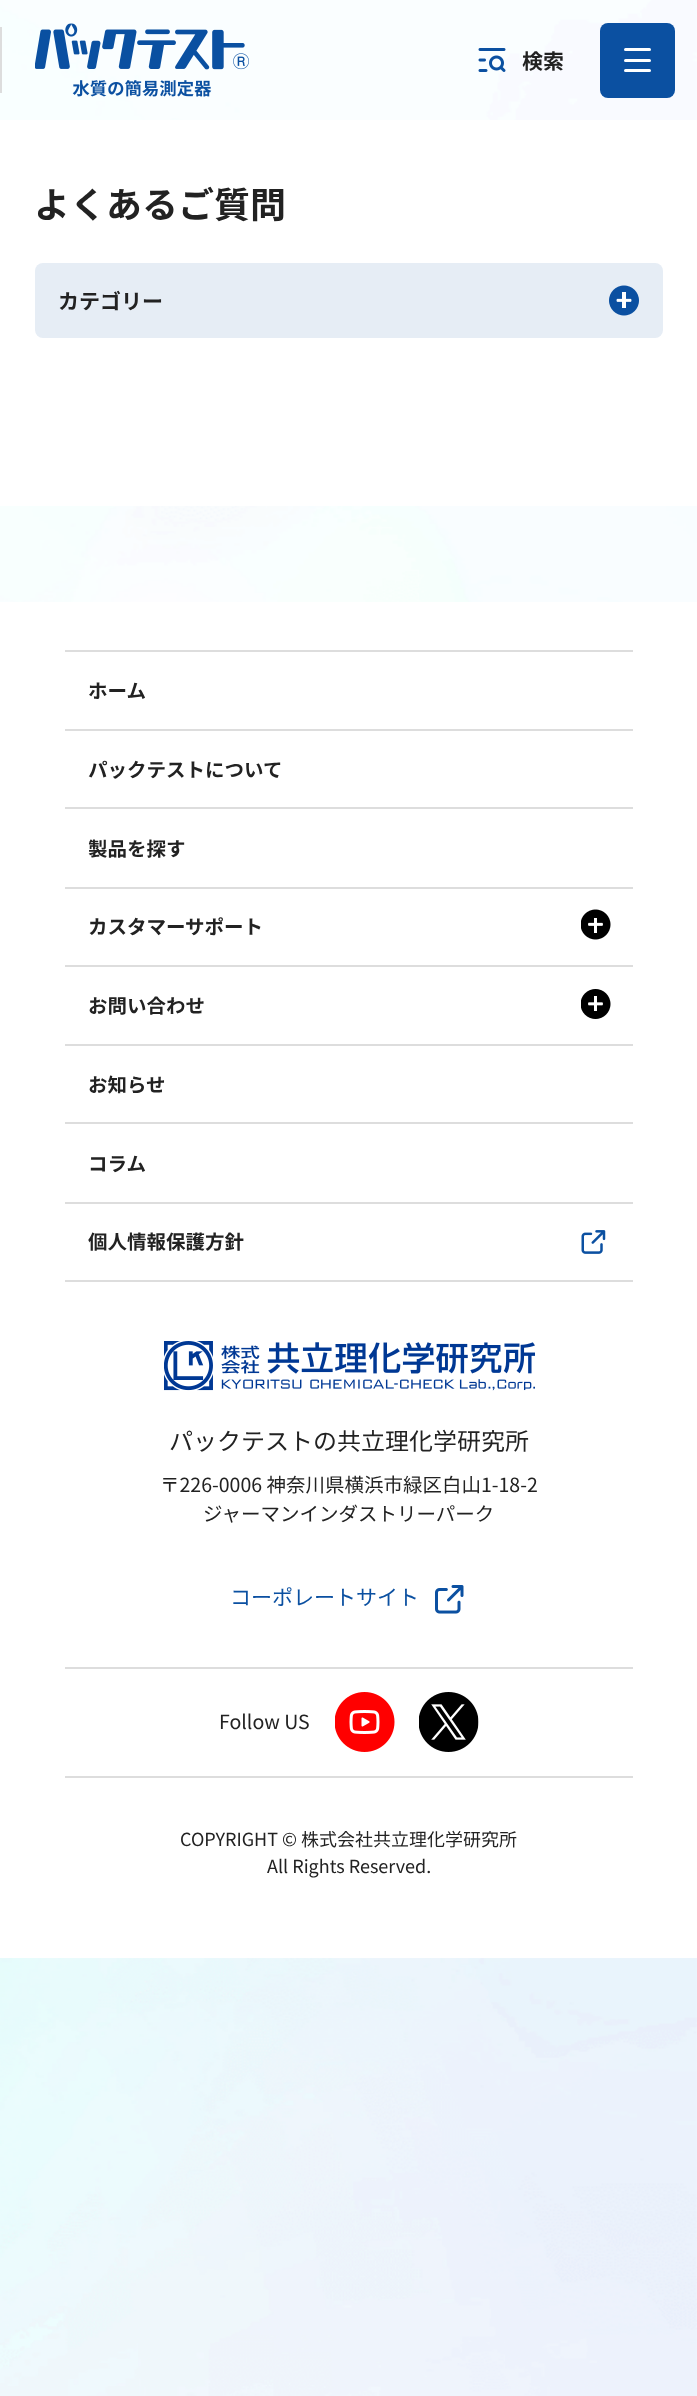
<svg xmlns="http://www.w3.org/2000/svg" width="697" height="2396">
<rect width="100%" height="100%" fill="#fff"/>
<image x="0" y="0" width="697" height="2396" href="media/1.png"/>
<image x="35" y="23" width="214" height="74" href="media/2.png"/>
<rect y="27" width="2" height="66" fill="#ddd"/>
<image x="478" y="48" width="28" height="24" href="media/3.png"/>
<text x="522" y="69" style="font-family:Noto Sans CJK JP;font-size:21px;font-weight:bold;fill:#222">検索</text>
<rect x="600" y="23" width="75" height="75" rx="8" fill="#0b50a1"/>
<rect x="624" y="48" width="27" height="3" rx="1.5" fill="#fff"/>
<rect x="624" y="59" width="27" height="3" rx="1.5" fill="#fff"/>
<rect x="624" y="69" width="27" height="3" rx="1.5" fill="#fff"/>
<rect y="120" width="697" height="386" fill="#fff"/>
<text x="34" y="218" style="font-family:Noto Sans CJK JP;font-size:36px;font-weight:bold;fill:#222">よくあるご質問</text>
<rect x="35" y="263" width="628" height="75" rx="8" fill="#e6edf5"/>
<text x="58" y="309" style="font-family:Noto Sans CJK JP;font-size:21px;font-weight:bold;fill:#222">カテゴリー</text>
<image x="609" y="285" width="30" height="31" href="media/4.png"/>
<rect x="622" y="292" width="4" height="16" fill="#fff"/>
<rect y="602" width="697" height="1356" fill="#fff"/>
<rect x="65" y="1280" width="568" height="2" fill="#ddd"/>
<rect x="65" y="650" width="568" height="2" fill="#ddd"/>
<text x="88" y="698" style="font-family:Noto Sans CJK JP;font-size:19.5px;font-weight:bold;fill:#222">ホーム</text>
<rect x="65" y="729" width="568" height="2" fill="#ddd"/>
<text x="88" y="777" style="font-family:Noto Sans CJK JP;font-size:19.5px;font-weight:bold;fill:#222">パックテストについて</text>
<rect x="65" y="807" width="568" height="2" fill="#ddd"/>
<text x="88" y="856" style="font-family:Noto Sans CJK JP;font-size:19.5px;font-weight:bold;fill:#222">製品を探す</text>
<rect x="65" y="887" width="568" height="2" fill="#ddd"/>
<text x="88" y="934" style="font-family:Noto Sans CJK JP;font-size:19.5px;font-weight:bold;fill:#222">カスタマーサポート</text>
<image x="581" y="909" width="30" height="31" href="media/5.png"/>
<rect x="594" y="918" width="3" height="15" fill="#fff"/>
<rect x="65" y="965" width="568" height="2" fill="#ddd"/>
<text x="88" y="1013" style="font-family:Noto Sans CJK JP;font-size:19.5px;font-weight:bold;fill:#222">お問い合わせ</text>
<image x="581" y="989" width="30" height="30" href="media/6.png"/>
<rect x="594" y="996" width="3" height="15" fill="#fff"/>
<rect x="65" y="1044" width="568" height="2" fill="#ddd"/>
<text x="88" y="1092" style="font-family:Noto Sans CJK JP;font-size:19.5px;font-weight:bold;fill:#222">お知らせ</text>
<rect x="65" y="1122" width="568" height="2" fill="#ddd"/>
<text x="88" y="1171" style="font-family:Noto Sans CJK JP;font-size:19.5px;font-weight:bold;fill:#222">コラム</text>
<rect x="65" y="1202" width="568" height="2" fill="#ddd"/>
<image x="581" y="1230" width="25" height="24" href="media/7.png"/>
<text x="88" y="1249" style="font-family:Noto Sans CJK JP;font-size:19.5px;font-weight:bold;fill:#222">個人情報保護方針</text>
<image x="164" y="1341" width="371" height="50" href="media/8.png"/>
<text x="169" y="1450" style="font-family:Noto Sans CJK JP;font-size:24px;fill:#222">パックテストの共立理化学研究所</text>
<text x="160" y="1492" style="font-family:Noto Sans CJK JP;font-size:19.5px;fill:#222">〒226-0006 神奈川県横浜市緑区白山1-18-2</text>
<text x="203" y="1521" style="font-family:Noto Sans CJK JP;font-size:19.5px;fill:#222">ジャーマンインダストリーパーク</text>
<text x="230" y="1605" style="font-family:Noto Sans CJK JP;font-size:21px;fill:#0b50a1">コーポレートサイト</text>
<image x="435" y="1585" width="29" height="29" href="media/9.png"/>
<rect x="65" y="1667" width="568" height="2" fill="#ddd"/>
<rect x="65" y="1776" width="568" height="2" fill="#ddd"/>
<text x="219" y="1729" style="font-family:Noto Sans CJK JP;font-size:19.5px;fill:#222">Follow US</text>
<image x="335" y="1692" width="60" height="60" href="media/10.png"/>
<image x="419" y="1692" width="60" height="60" href="media/11.png"/>
<text x="180" y="1846" style="font-family:Noto Sans CJK JP;font-size:18px;fill:#222">COPYRIGHT © 株式会社共立理化学研究所</text>
<text x="267" y="1873" style="font-family:Noto Sans CJK JP;font-size:18px;fill:#222">All Rights Reserved.</text>
</svg>
